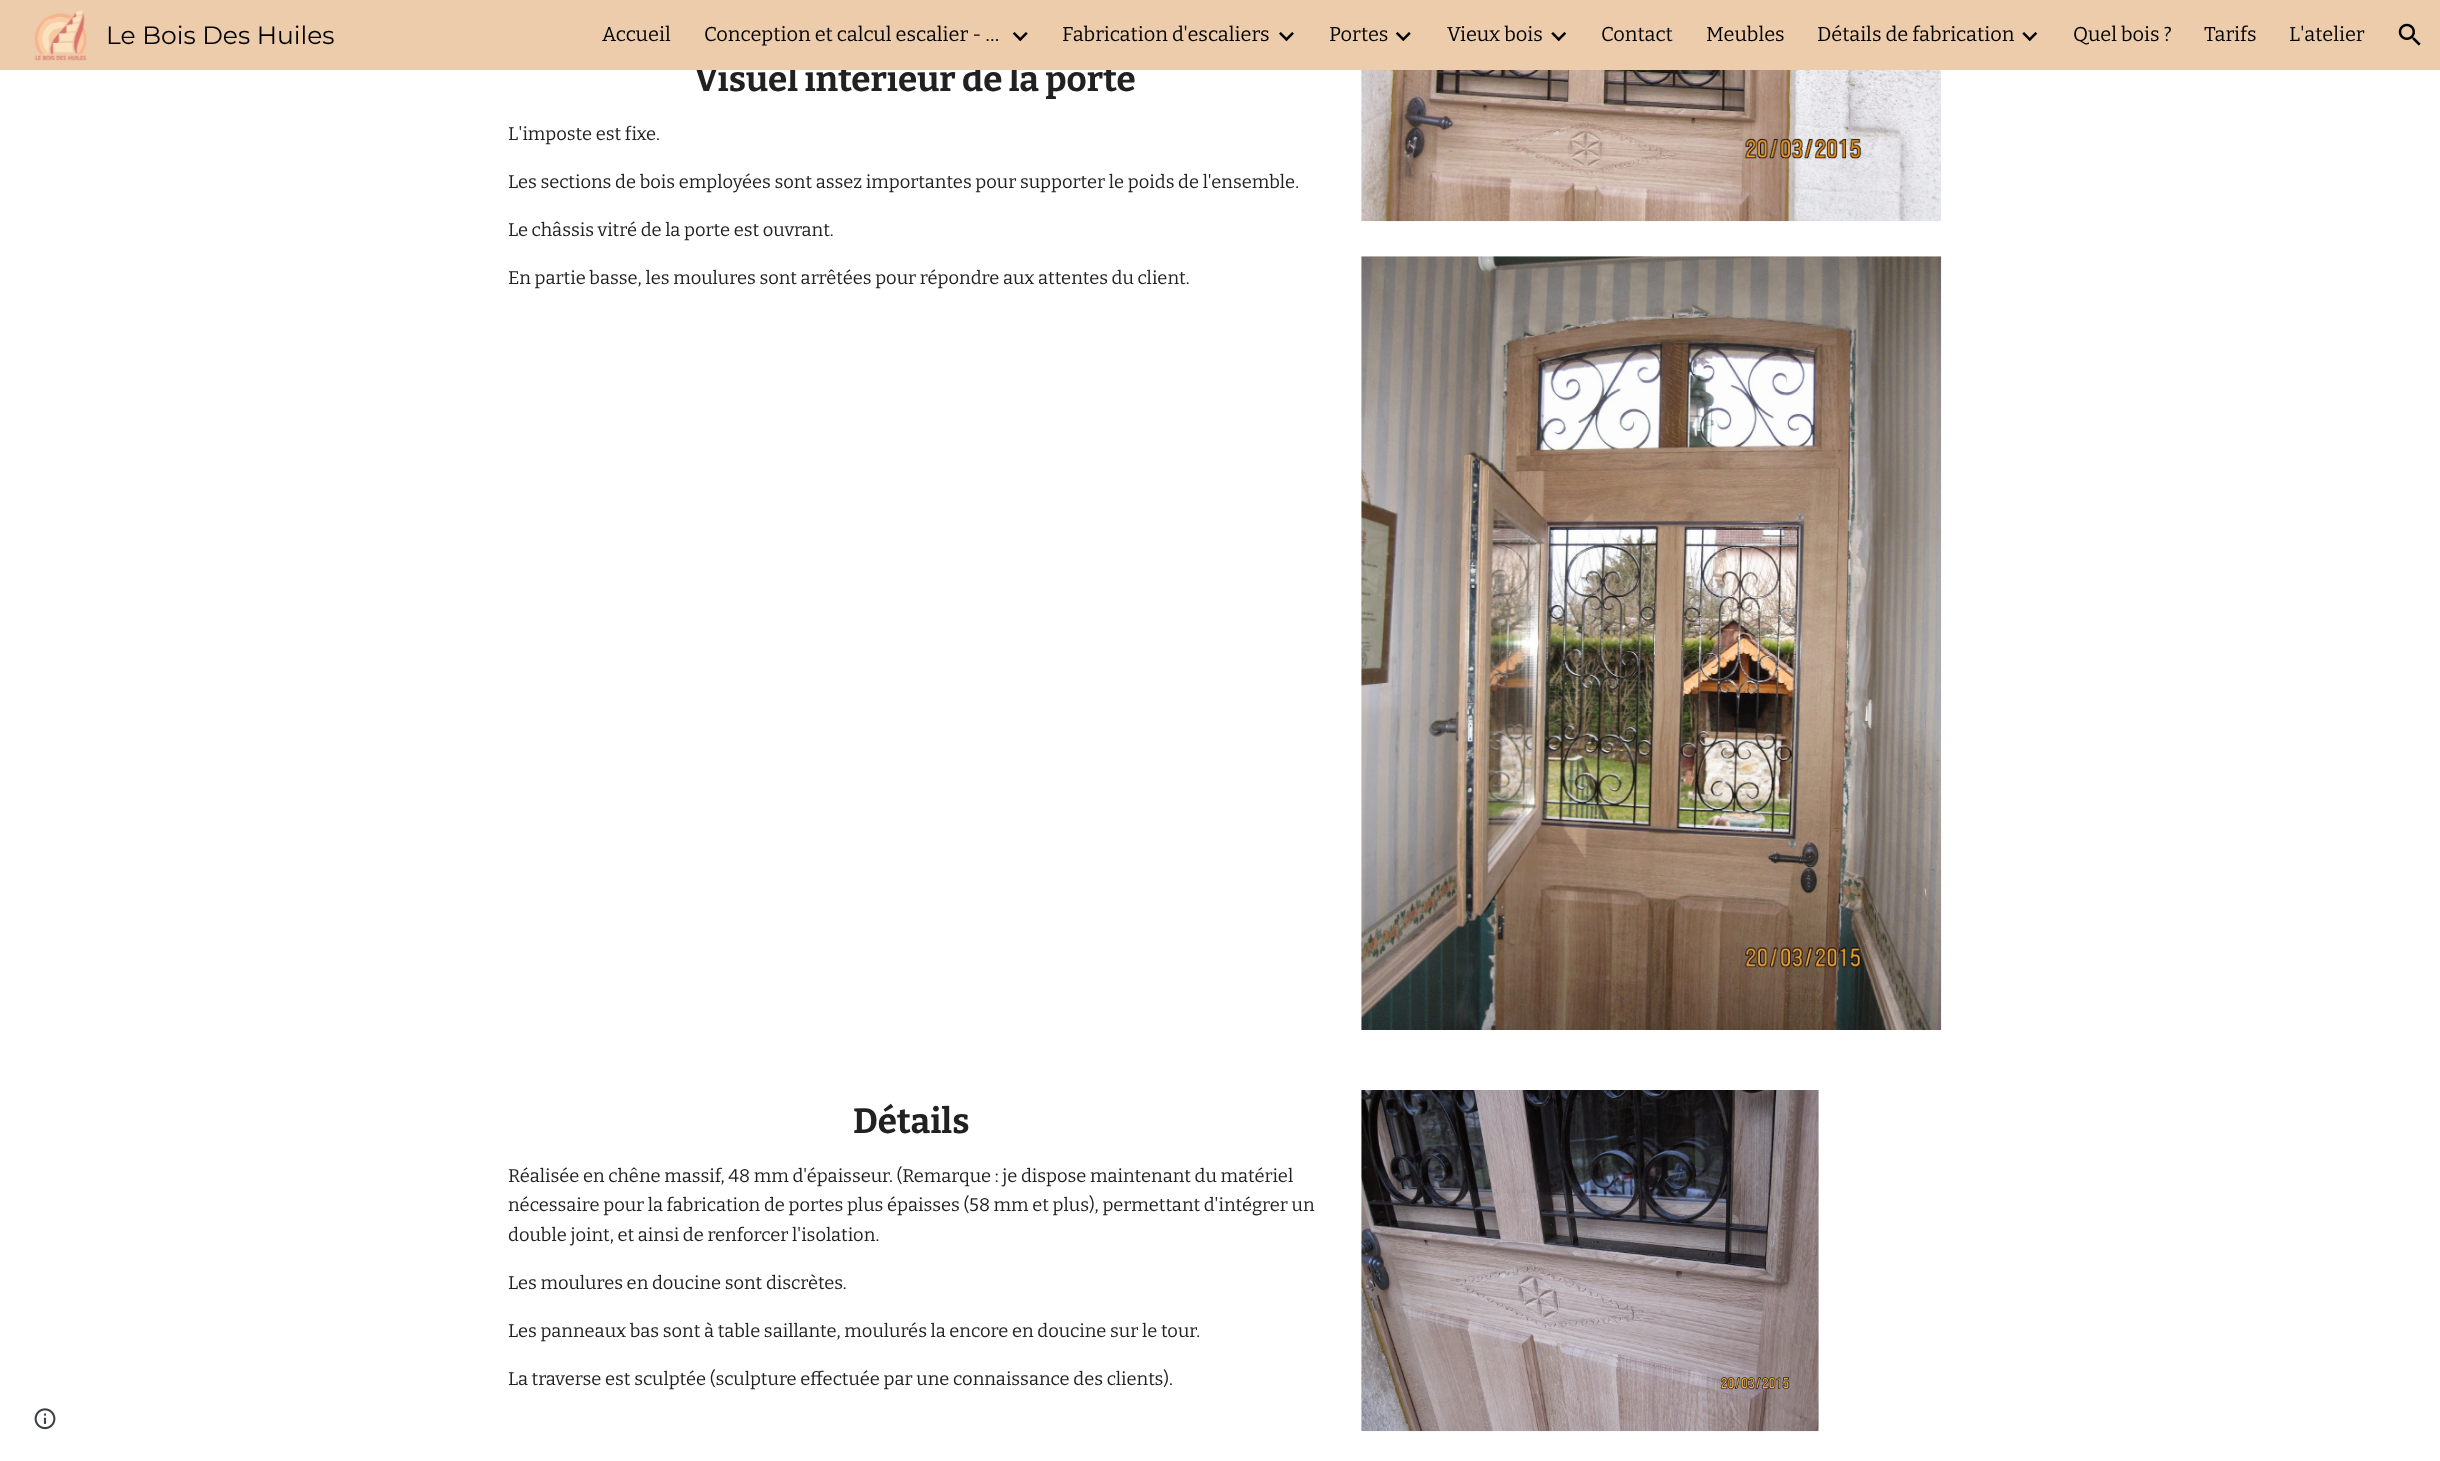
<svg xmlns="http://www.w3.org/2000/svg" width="2440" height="1461">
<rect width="100%" height="100%" fill="#fff"/>
<text x="694" y="91" style="font-family:Bitter;font-size:35px;font-weight:bold;fill:#212121">Visuel intérieur de la porte</text>
<rect width="2440" height="70" fill="#ecccab"/>
<image x="34" y="10" width="53" height="51" href="media/1.png"/>
<text x="106" y="44" style="font-family:Montserrat;font-size:25px;fill:#000">Le Bois Des Huiles</text>
<text x="602" y="41" style="font-family:Bitter;font-size:20px;fill:#000">Accueil</text>
<text x="704" y="41" style="font-family:Bitter;font-size:20px;fill:#000">Conception et calcul escalier - …</text>
<image x="1012" y="32" width="16" height="10" href="media/2.png"/>
<text x="1062" y="41" style="font-family:Bitter;font-size:20px;fill:#000">Fabrication d'escaliers</text>
<image x="1279" y="32" width="15" height="10" href="media/3.png"/>
<text x="1329" y="41" style="font-family:Bitter;font-size:20px;fill:#000">Portes</text>
<image x="1395" y="32" width="16" height="10" href="media/4.png"/>
<text x="1447" y="41" style="font-family:Bitter;font-size:20px;fill:#000">Vieux bois</text>
<image x="1551" y="32" width="16" height="10" href="media/5.png"/>
<text x="1601" y="41" style="font-family:Bitter;font-size:20px;fill:#000">Contact</text>
<text x="1706" y="41" style="font-family:Bitter;font-size:20px;fill:#000">Meubles</text>
<text x="1817" y="41" style="font-family:Bitter;font-size:20px;fill:#000">Détails de fabrication</text>
<image x="2022" y="32" width="16" height="10" href="media/6.png"/>
<text x="2073" y="41" style="font-family:Bitter;font-size:20px;fill:#000">Quel bois ?</text>
<text x="2204" y="41" style="font-family:Bitter;font-size:20px;fill:#000">Tarifs</text>
<text x="2289" y="41" style="font-family:Bitter;font-size:20px;fill:#000">L'atelier</text>
<image x="2398" y="23" width="23" height="23" href="media/7.png"/>
<text x="508" y="140" style="font-family:Bitter;font-size:18.35px;fill:#212121">L'imposte est fixe.</text>
<text x="508" y="188" style="font-family:Bitter;font-size:18.35px;fill:#212121">Les sections de bois employées sont assez importantes pour supporter le poids de l'ensemble.</text>
<text x="508" y="236" style="font-family:Bitter;font-size:18.35px;fill:#212121">Le châssis vitré de la porte est ouvrant.</text>
<text x="508" y="284" style="font-family:Bitter;font-size:18.35px;fill:#212121">En partie basse, les moulures sont arrêtées pour répondre aux attentes du client.</text>
<image x="1361" y="70" width="580" height="152" href="media/8.png"/>
<image x="1361" y="256" width="581" height="774" href="media/9.png"/>
<text x="853" y="1133" style="font-family:Bitter;font-size:35px;font-weight:bold;fill:#212121">Détails</text>
<text x="508" y="1182" style="font-family:Bitter;font-size:18.35px;fill:#212121">Réalisée en chêne massif, 48 mm d'épaisseur. (Remarque : je dispose maintenant du matériel</text>
<text x="508" y="1211" style="font-family:Bitter;font-size:18.35px;fill:#212121">nécessaire pour la fabrication de portes plus épaisses (58 mm et plus), permettant d'intégrer un</text>
<text x="508" y="1241" style="font-family:Bitter;font-size:18.35px;fill:#212121">double joint, et ainsi de renforcer l'isolation.</text>
<text x="508" y="1289" style="font-family:Bitter;font-size:18.35px;fill:#212121">Les moulures en doucine sont discrètes.</text>
<text x="508" y="1337" style="font-family:Bitter;font-size:18.35px;fill:#212121">Les panneaux bas sont à table saillante, moulurés la encore en doucine sur le tour.</text>
<text x="508" y="1385" style="font-family:Bitter;font-size:18.35px;fill:#212121">La traverse est sculptée (sculpture effectuée par une connaissance des clients).</text>
<image x="1361" y="1090" width="458" height="342" href="media/10.png"/>
<image x="34" y="1408" width="22" height="22" href="media/11.png"/>
</svg>
